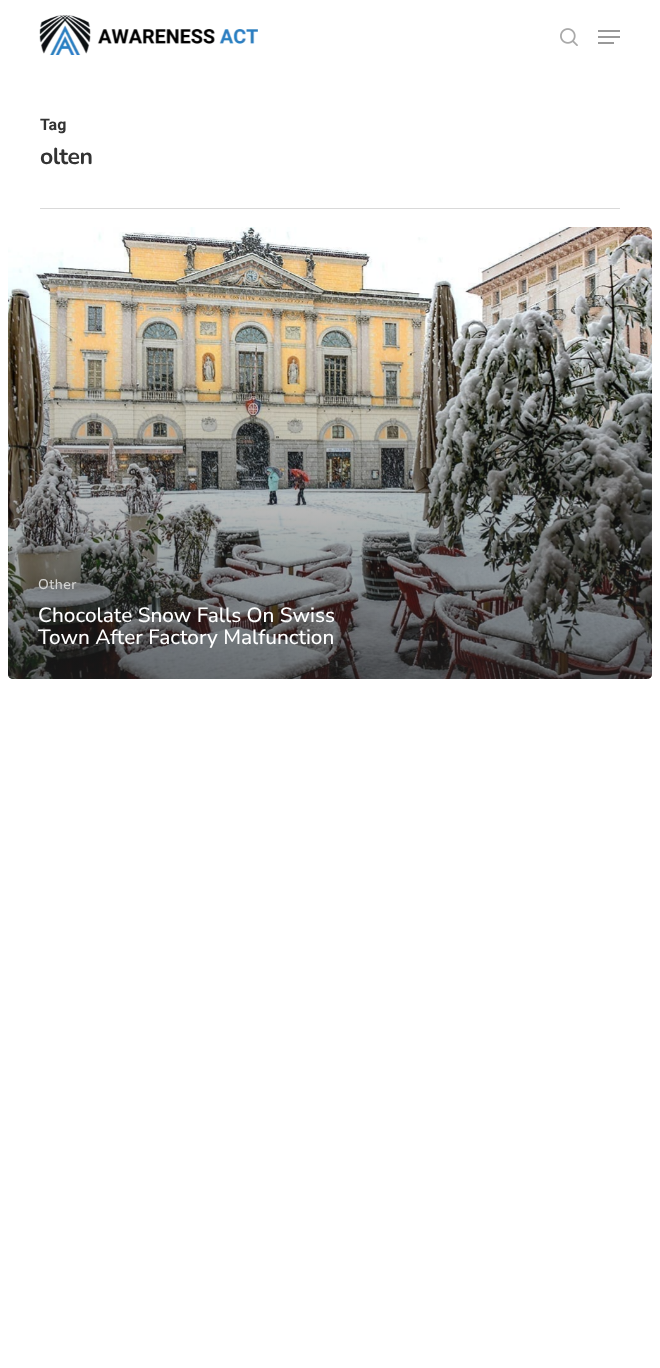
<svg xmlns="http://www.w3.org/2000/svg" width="660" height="1368">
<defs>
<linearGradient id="g1" gradientUnits="userSpaceOnUse" x1="332" y1="341" x2="332" y2="681"><stop offset="0" stop-color="#232323" stop-opacity="0"/><stop offset="1" stop-color="#232323" stop-opacity="0.65"/></linearGradient>
</defs>
<rect width="100%" height="100%" fill="#fff"/>
<image x="39" y="15" width="219" height="40" href="media/1.png"/>
<image x="560" y="28" width="18" height="18" href="media/2.png"/>
<rect x="598" y="30" width="22" height="2" fill="#999"/>
<rect x="598" y="42" width="16" height="2" fill="#999"/>
<rect x="598" y="36" width="22" height="2" fill="#999"/>
<rect x="40" y="208" width="580" height="1" fill="#d9d9d9"/>
<text x="40" y="130" style="font-family:Roboto;font-size:16px;font-weight:bold;fill:#333">Tag</text>
<text x="40" y="164" style="font-family:Nunito;font-size:23px;font-weight:bold;letter-spacing:-0.5px;fill:#333">olten</text>
<image x="8" y="227" width="644" height="452" href="media/3.png"/>
<path d="M8 341h644v333c0 3-2 5-5 5h-634c-3 0-5-2-5-5z" fill="url(#g1)"/>
<text x="38" y="589" style="font-family:Nunito Sans;font-size:14px;font-weight:500;letter-spacing:0.5px;fill:#d5d5d3">Other</text>
<text x="38" y="622" style="font-family:Nunito Sans;font-size:20.75px;font-weight:500;fill:#fff">Chocolate Snow Falls On Swiss</text>
<text x="38" y="644" style="font-family:Nunito Sans;font-size:20.75px;font-weight:500;fill:#fff">Town After Factory Malfunction</text>
</svg>
